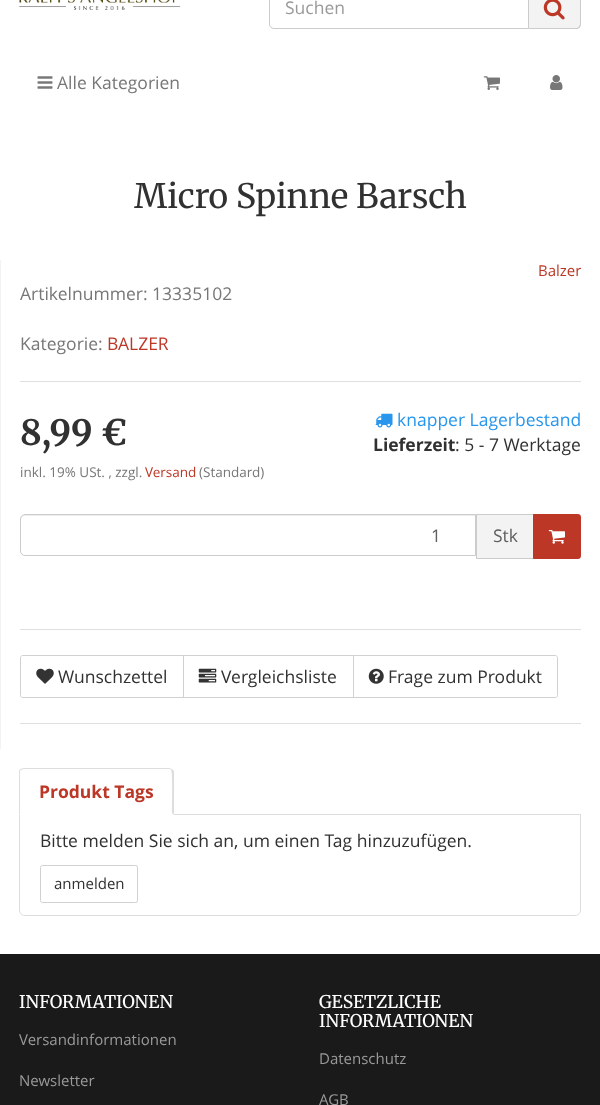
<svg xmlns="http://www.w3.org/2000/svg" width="600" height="1105">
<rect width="100%" height="100%" fill="#fff"/>
<image x="18" y="0" width="163" height="10" href="media/1.png"/>
<path d="M274-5.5h254.5v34h-254.5c-2.5 0-4.5-2-4.5-4.5v-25c0-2.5 2-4.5 4.5-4.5z" fill="none" stroke="#ccc"/>
<text x="285" y="14" style="font-family:Open Sans;font-size:17.5px;fill:#9a9a9a">Suchen</text>
<path d="M529-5h47c3 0 5 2 5 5v24c0 3-2 5-5 5h-47z" fill="#f3f3f3"/>
<path d="M529-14h47c3 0 5 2 5 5v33c0 3-2 5-5 5h-47zm0 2h47c2 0 4 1 4 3v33c0 2-2 4-4 4h-47z" fill="#ccc" fill-rule="evenodd"/>
<image x="543" y="0" width="22" height="20" href="media/2.png"/>
<image x="37" y="76" width="16" height="13" href="media/3.png"/>
<text x="57" y="89" style="font-family:Open Sans;font-size:17.5px;fill:#777">Alle Kategorien</text>
<image x="483" y="76" width="17" height="14" href="media/4.png"/>
<image x="550" y="75" width="13" height="15" href="media/5.png"/>
<text x="134" y="208" style="font-family:Merriweather;font-size:33.75px;fill:#313131">Micro Spinne Barsch</text>
<rect y="260" width="1" height="489" fill="#f3f3f3"/>
<text x="538" y="276" style="font-family:Open Sans;font-size:15px;fill:#bc3726">Balzer</text>
<text x="20" y="300" style="font-family:Open Sans;font-size:17.5px;fill:#777">Artikelnummer: 13335102</text>
<text x="20" y="350" style="font-family:Open Sans;font-size:17.5px;fill:#777">Kategorie:</text>
<text x="107" y="350" style="font-family:Open Sans;font-size:17.5px;fill:#bc3726">BALZER</text>
<rect x="20" y="381" width="561" height="1" fill="#dfdfdf"/>
<text x="20" y="445" style="font-family:Merriweather;font-size:35px;font-weight:bold;fill:#313131">8,99 €</text>
<text x="20" y="477" style="font-family:Open Sans;font-size:13.5px;fill:#777">inkl. 19% USt. , zzgl.</text>
<text x="145" y="477" style="font-family:Open Sans;font-size:13.5px;fill:#bc3726">Versand</text>
<text x="199" y="477" style="font-family:Open Sans;font-size:13.5px;fill:#777">(Standard)</text>
<image x="375" y="413" width="18" height="15" href="media/6.png"/>
<text x="397" y="426" style="font-family:Open Sans;font-size:17.5px;fill:#2896ec">knapper Lagerbestand</text>
<text x="373" y="451" style="font-family:Open Sans;font-size:17.5px;font-weight:bold;fill:#313131">Lieferzeit</text>
<text x="455" y="451" style="font-family:Open Sans;font-size:17.5px;fill:#313131">: 5 - 7 Werktage</text>
<path d="M25 516h450v-1h-450c-2 0-4 2-4 4v1c0-2 2-4 4-4z" fill="#ececec"/>
<path d="M25 514.5h450.5v41h-450.5c-2.5 0-4.5-2-4.5-4.5v-32c0-2.5 2-4.5 4.5-4.5z" fill="none" stroke="#ccc"/>
<text x="431" y="542" style="font-family:Open Sans;font-size:17.5px;fill:#606060">1</text>
<rect x="476.5" y="514.5" width="57" height="44" fill="#f3f3f3" stroke="#ccc"/>
<text x="493" y="542" style="font-family:Open Sans;font-size:17.5px;fill:#606060">Stk</text>
<path d="M533.5 514.5h45c1 0 2 1 2 2v40c0 1-1 2-2 2h-45z" fill="#bc3726" stroke="#bc3726"/>
<image x="548" y="530" width="17" height="14" href="media/7.png"/>
<rect x="20" y="629" width="561" height="1" fill="#dfdfdf"/>
<path d="M22.5 655.5h161v42h-161c-1 0-2-1-2-2v-38c0-1 1-2 2-2z" fill="none" stroke="#d1d1d1"/>
<image x="36" y="668" width="18" height="16" href="media/8.png"/>
<text x="58" y="683" style="font-family:Open Sans;font-size:17.5px;fill:#313131">Wunschzettel</text>
<rect x="183.5" y="655.5" width="170" height="42" fill="none" stroke="#d1d1d1"/>
<image x="198" y="668" width="19" height="15" href="media/9.png"/>
<text x="221" y="683" style="font-family:Open Sans;font-size:17.5px;fill:#313131">Vergleichsliste</text>
<path d="M353.5 655.5h202c1 0 2 1 2 2v38c0 1-1 2-2 2h-202z" fill="#fff" stroke="#d1d1d1"/>
<image x="368" y="668" width="16" height="16" href="media/10.png"/>
<text x="388" y="683" style="font-family:Open Sans;font-size:17.5px;fill:#313131">Frage zum Produkt</text>
<rect x="20" y="723" width="561" height="1" fill="#dfdfdf"/>
<rect x="174" y="814" width="407" height="1" fill="#ddd"/>
<path d="M24 768l-4 1l1 1l3-1h145c1 0 2 0 2 1l1-1l-3-1z" fill="#ddd"/>
<path d="M172 769l2 2v44l-2-2c0-5 1-41-1-43z" fill="#ddd"/>
<path d="M20 769l-1 2v44l1-1v-43l1-1z" fill="#ddd"/>
<text x="39" y="798" style="font-family:Open Sans;font-size:17.5px;font-weight:bold;fill:#bc3726">Produkt Tags</text>
<path d="M19 815h562v95c0 3-3 6-6 6h-550c-3 0-6-3-6-6zm1 0h560v95c0 3-2 5-5 5h-550c-3 0-5-2-5-5z" fill="#ddd" fill-rule="evenodd"/>
<text x="40" y="847" style="font-family:Open Sans;font-size:17.5px;fill:#313131">Bitte melden Sie sich an, um einen Tag hinzuzufügen.</text>
<rect x="40.5" y="865.5" width="97" height="37" rx="2" fill="none" stroke="#d1d1d1"/>
<text x="54" y="889" style="font-family:Open Sans;font-size:15px;fill:#313131">anmelden</text>
<rect y="954" width="600" height="151" fill="#1a1a1a"/>
<text x="19" y="1008" style="font-family:'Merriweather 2';font-size:17.5px;fill:#fff">INFORMATIONEN</text>
<text x="19" y="1045" style="font-family:Open Sans;font-size:15px;fill:#9a9a9a">Versandinformationen</text>
<text x="19" y="1086" style="font-family:Open Sans;font-size:15px;fill:#9a9a9a">Newsletter</text>
<text x="319" y="1008" style="font-family:'Merriweather 2';font-size:17.5px;fill:#fff">GESETZLICHE</text>
<text x="319" y="1027" style="font-family:'Merriweather 2';font-size:17.5px;fill:#fff">INFORMATIONEN</text>
<text x="319" y="1064" style="font-family:Open Sans;font-size:15px;fill:#9a9a9a">Datenschutz</text>
<text x="319" y="1105" style="font-family:Open Sans;font-size:15px;fill:#9a9a9a">AGB</text>
</svg>
